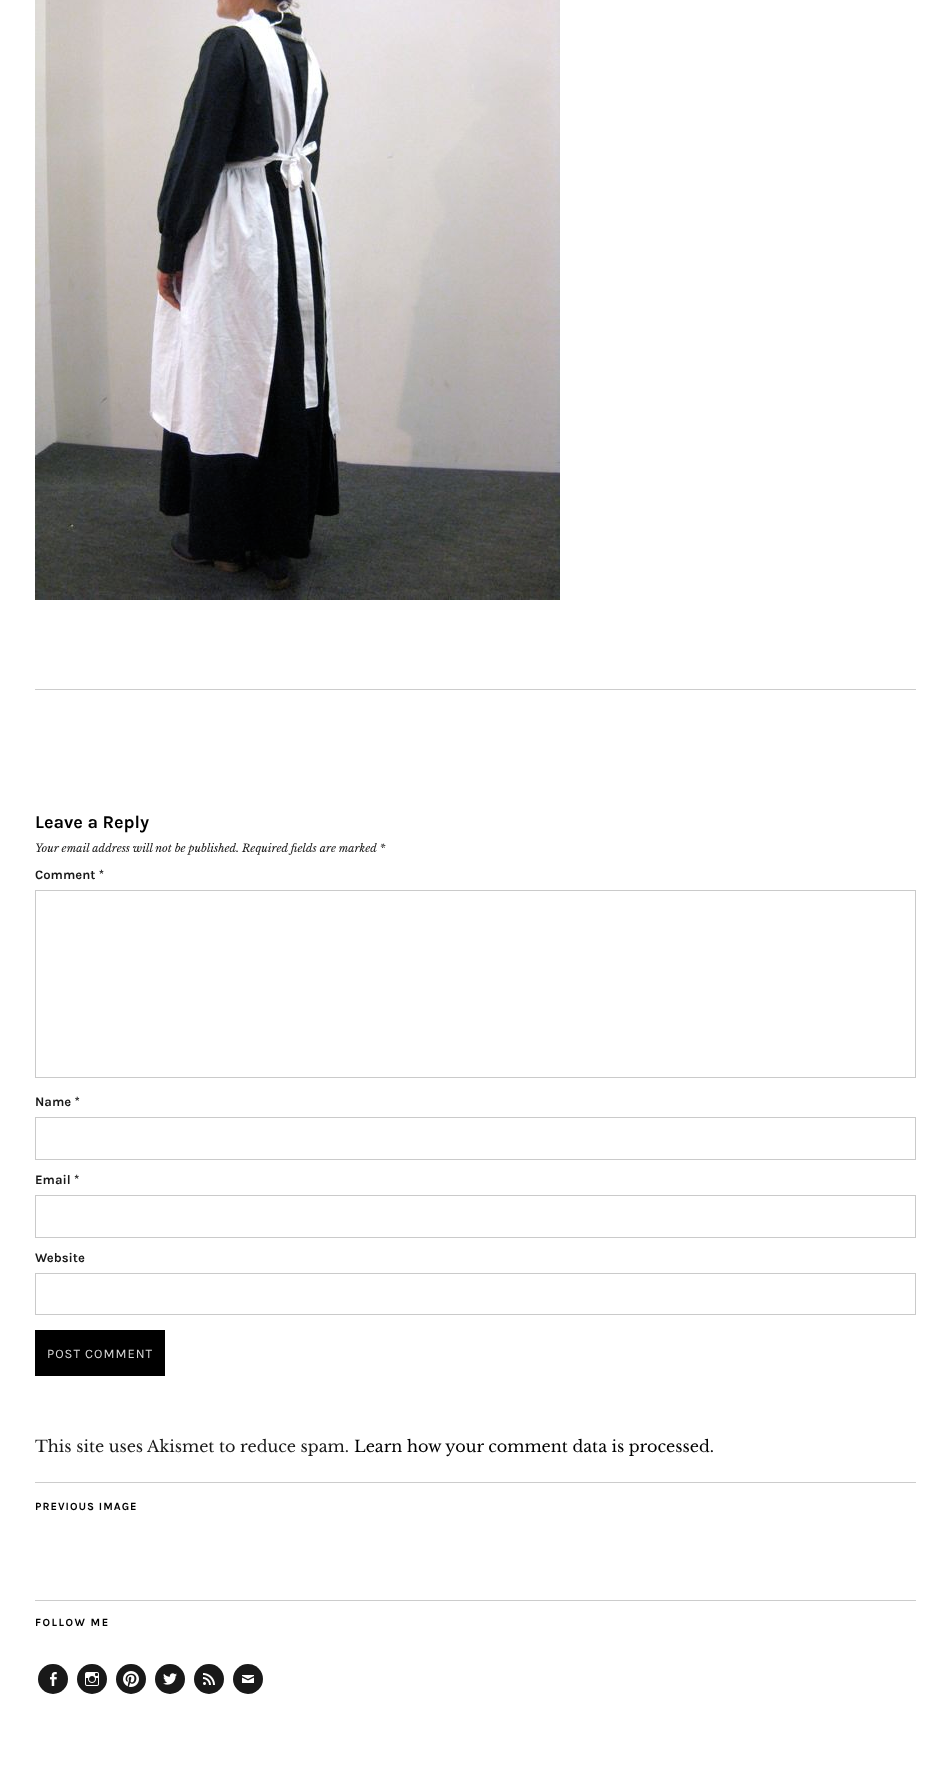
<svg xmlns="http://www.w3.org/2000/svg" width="951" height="1765">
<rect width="100%" height="100%" fill="#fff"/>
<rect x="35" y="689" width="881" height="1" fill="#ccc"/>
<image x="35" y="0" width="525" height="600" href="media/1.png"/>
<text x="35" y="828" style="font-family:Karla;font-size:18px;font-weight:bold;fill:#000">Leave a Reply</text>
<text x="35" y="852" style="font-family:Libre Baskerville;font-size:11px;font-style:italic;fill:#191919">Your email address will not be published. Required fields are marked *</text>
<text x="35" y="879" style="font-family:Karla;font-size:13px;font-weight:bold;fill:#191919">Comment *</text>
<rect x="35.5" y="890.5" width="880" height="187" fill="none" stroke="#cacaca"/>
<text x="35" y="1106" style="font-family:Karla;font-size:13px;font-weight:bold;fill:#191919">Name *</text>
<rect x="35.5" y="1117.5" width="880" height="42" fill="none" stroke="#cacaca"/>
<text x="35" y="1184" style="font-family:Karla;font-size:13px;font-weight:bold;fill:#191919">Email *</text>
<rect x="35.5" y="1195.5" width="880" height="42" fill="none" stroke="#cacaca"/>
<text x="35" y="1262" style="font-family:Karla;font-size:13px;font-weight:bold;fill:#191919">Website</text>
<rect x="35.5" y="1273.5" width="880" height="41" fill="none" stroke="#cacaca"/>
<rect x="35" y="1330" width="130" height="46" fill="#000"/>
<text x="47" y="1358" style="font-family:Karla;font-size:13px;letter-spacing:1px;fill:#d9d9d9">POST COMMENT</text>
<text x="35" y="1452" style="font-family:Libre Baskerville;font-size:16px;fill:#191919">This site uses Akismet to reduce spam.</text>
<text x="354" y="1452" style="font-family:Libre Baskerville;font-size:16px;fill:#000">Learn how your comment data is processed.</text>
<rect x="35" y="1482" width="881" height="1" fill="#ccc"/>
<text x="35" y="1510" style="font-family:Karla;font-size:11px;font-weight:bold;letter-spacing:1px;fill:#000">PREVIOUS IMAGE</text>
<rect x="35" y="1600" width="881" height="1" fill="#ccc"/>
<text x="35" y="1626" style="font-family:Karla;font-size:11px;font-weight:bold;letter-spacing:1.5px;fill:#000">FOLLOW ME</text>
<circle cx="53" cy="1679" r="15" fill="#191919"/>
<image x="50" y="1672" width="7" height="14" href="media/2.png"/>
<circle cx="92" cy="1679" r="15" fill="#191919"/>
<image x="85" y="1672" width="14" height="14" href="media/3.png"/>
<circle cx="131" cy="1679" r="15" fill="#191919"/>
<image x="123" y="1671" width="16" height="16" href="media/4.png"/>
<circle cx="170" cy="1679" r="15" fill="#191919"/>
<image x="163" y="1673" width="14" height="12" href="media/5.png"/>
<circle cx="209" cy="1679" r="15" fill="#191919"/>
<image x="203" y="1673" width="12" height="12" href="media/6.png"/>
<circle cx="248" cy="1679" r="15" fill="#191919"/>
<image x="242" y="1675" width="12" height="8" href="media/7.png"/>
</svg>
